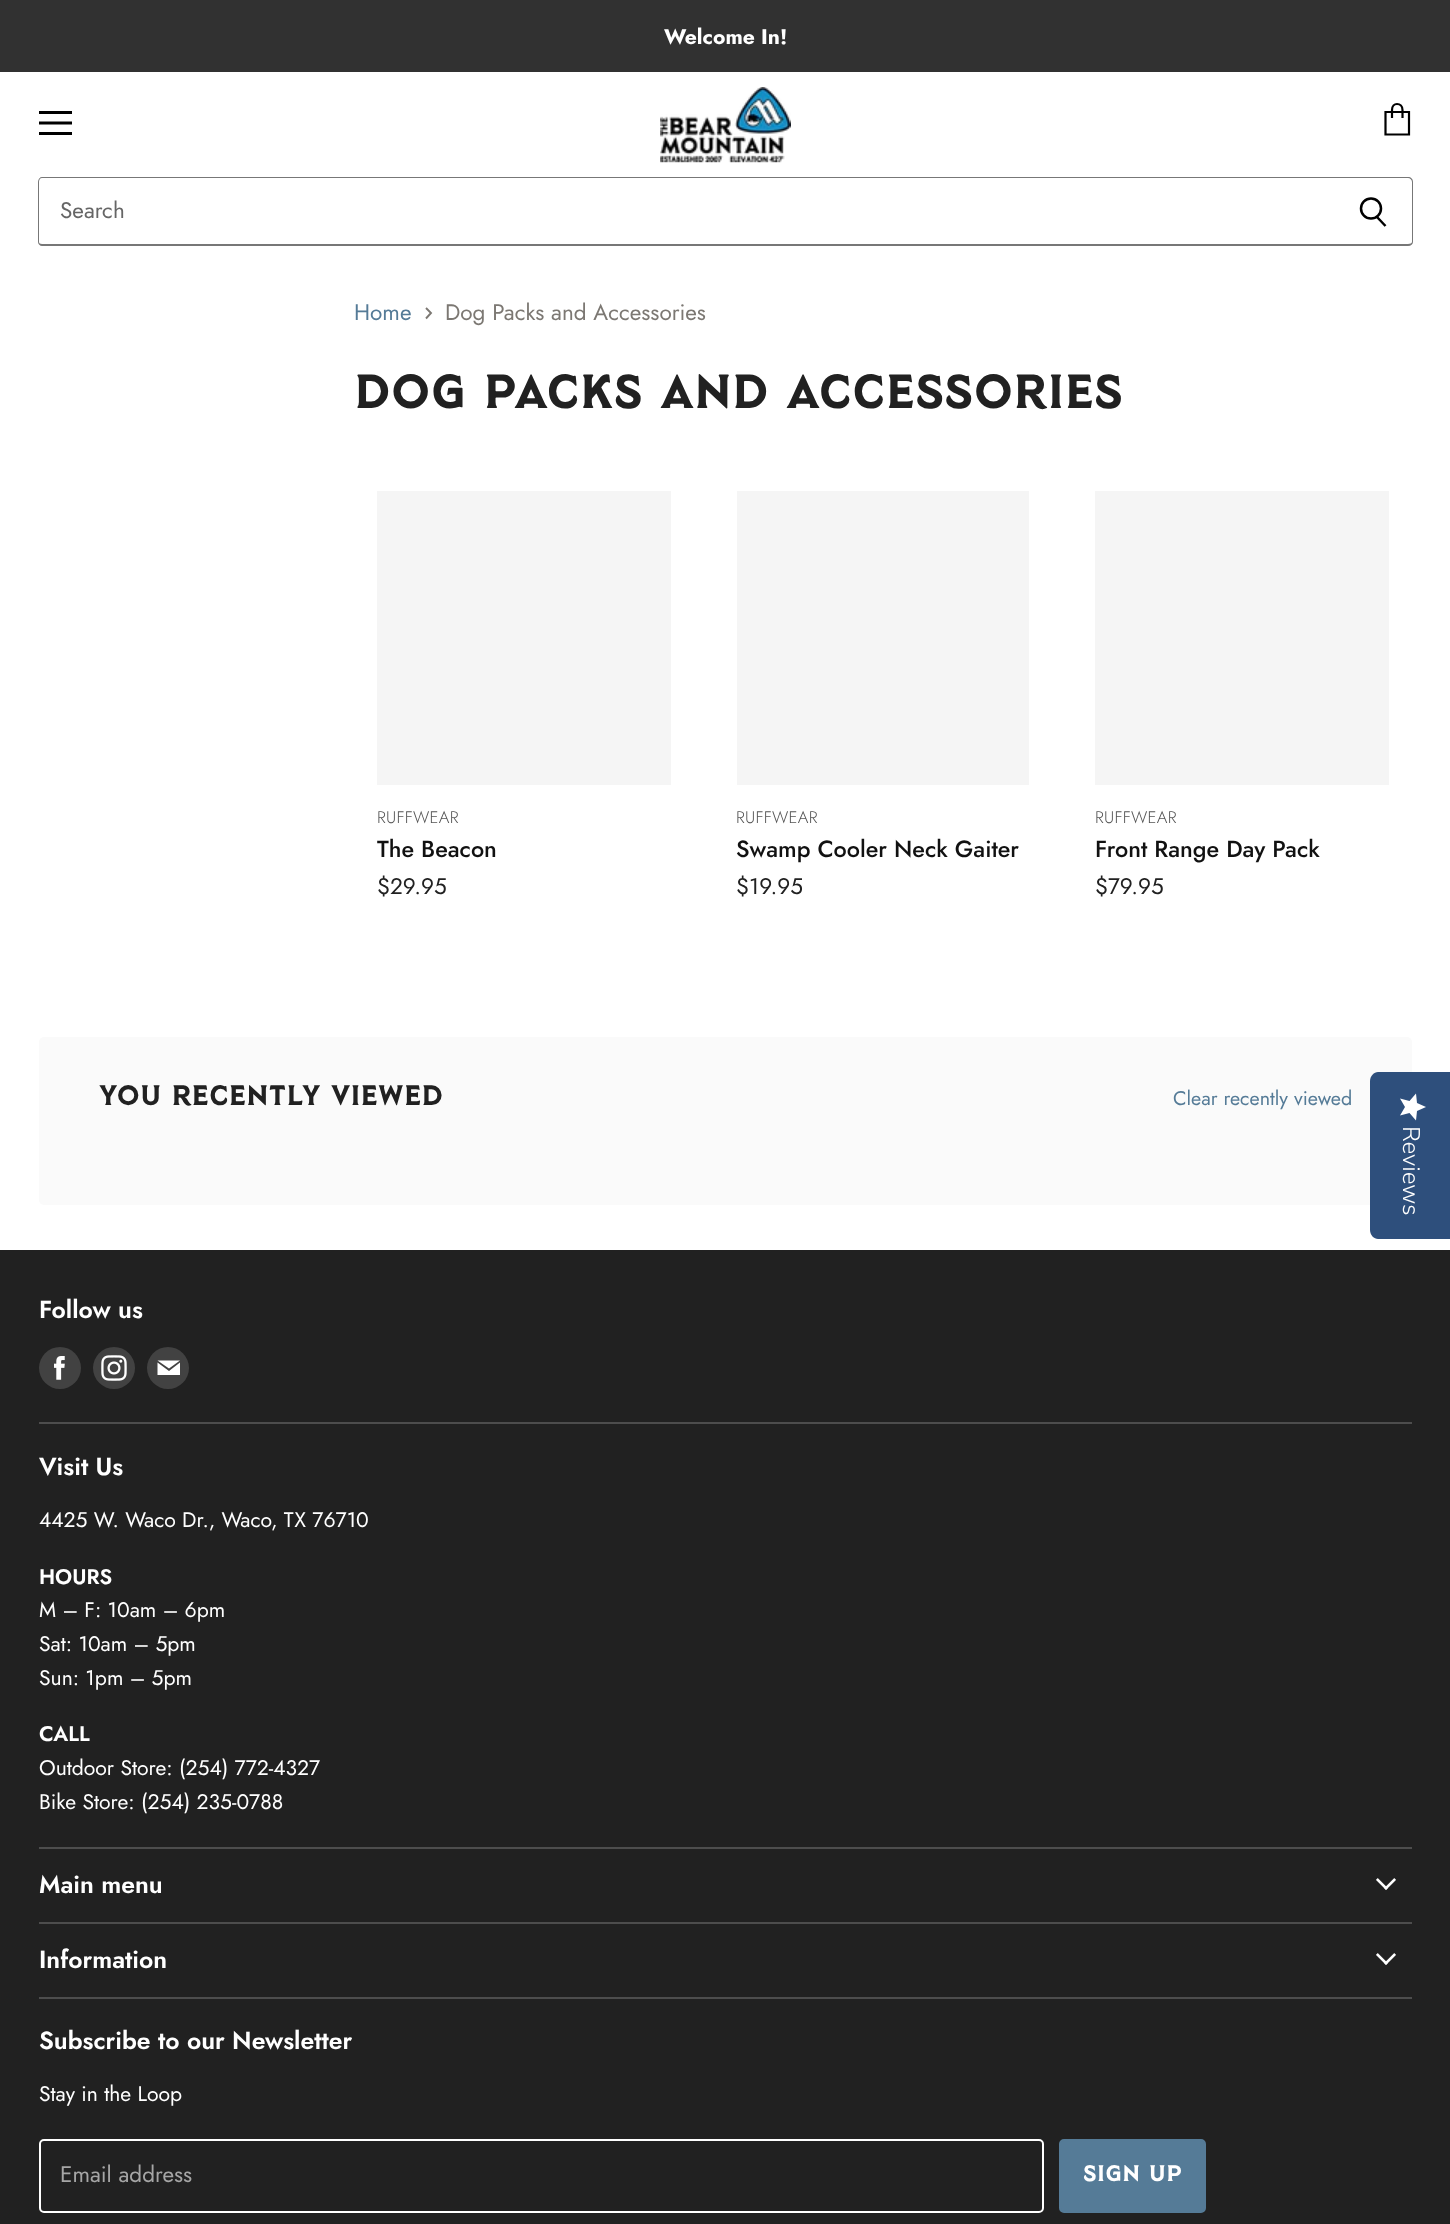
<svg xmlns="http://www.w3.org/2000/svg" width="1450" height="2224">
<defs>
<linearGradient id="g1" gradientUnits="userSpaceOnUse" x1="1426" y1="1094" x2="1426" y2="1121"><stop offset="1" stop-color="#fff"/><stop offset="1" stop-color="#eaeaea"/></linearGradient>
</defs>
<rect width="100%" height="100%" fill="#fff"/>
<rect width="1450" height="72" fill="#313131"/>
<text x="664" y="44" style="font-family:Jost;font-size:21.1px;font-weight:bold;fill:#fff">Welcome In!</text>
<rect x="39" y="111" width="33" height="3" fill="#000"/>
<path d="M70.5 123h-30" fill="none" stroke="#000" stroke-width="3" stroke-linecap="square" stroke-linejoin="round"/>
<rect x="39" y="132" width="33" height="3" fill="#000"/>
<path d="M1385.5 112h23.5v22.5h-23.5zm17 6v-8c0-4-2.5-6-5.5-6c-2.5 0-5 2-5 6v8" fill="none" stroke="#000" stroke-width="2.2"/>
<image x="660" y="87" width="131" height="76" href="media/1.png"/>
<path d="M42 177h1292v69h-1292c-2 0-4-2-4-4v-60c0-3 2-5 4-5zm0 1h1292v66h-1292c-2 0-3-1-3-2v-60c0-2 1-4 3-4z" fill="#777" fill-rule="evenodd"/>
<text x="60" y="218" style="font-family:Jost;font-size:22.5px;fill:#666">Search</text>
<path d="M1334 177h74c3 0 5 2 5 5v60c0 2-2 4-5 4h-74zm0 1h74c2 0 4 2 4 4v60c0 1-2 2-4 2h-74z" fill="#777" fill-rule="evenodd"/>
<path d="M1385.5 226l-8.5-9" fill="none" stroke="#000" stroke-width="2.5"/>
<circle cx="1371" cy="208.5" r="10" fill="none" stroke="#000" stroke-width="2.5"/>
<text x="354" y="320" style="font-family:Jost;font-size:22.5px;fill:#557b97">Home</text>
<path d="M426 318.5l5-5.5l-5-5" fill="none" stroke="#7c7873" stroke-width="1.9"/>
<text x="445" y="320" style="font-family:Jost;font-size:22.5px;fill:#7c7873">Dog Packs and Accessories</text>
<text x="354" y="408" style="font-family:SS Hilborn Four;font-size:47.75px;fill:#212121">Dog Packs and Accessories</text>
<rect x="377" y="491" width="294" height="294" fill="#f5f5f5"/>
<text x="377" y="823" style="font-family:Jost;font-size:16.75px;font-weight:300;letter-spacing:0.25px;fill:#555">RUFFWEAR</text>
<text x="377" y="857" style="font-family:Jost;font-size:23.4px;font-weight:500;fill:#111">The Beacon</text>
<text x="377" y="894" style="font-family:Jost;font-size:22.5px;fill:#212121">$29.95</text>
<rect x="737" y="491" width="292" height="294" fill="#f5f5f5"/>
<text x="736" y="823" style="font-family:Jost;font-size:16.75px;font-weight:300;letter-spacing:0.25px;fill:#555">RUFFWEAR</text>
<text x="736" y="857" style="font-family:Jost;font-size:23.4px;font-weight:500;fill:#111">Swamp Cooler Neck Gaiter</text>
<text x="736" y="894" style="font-family:Jost;font-size:22.5px;fill:#212121">$19.95</text>
<rect x="1095" y="491" width="294" height="294" fill="#f5f5f5"/>
<text x="1095" y="823" style="font-family:Jost;font-size:16.75px;font-weight:300;letter-spacing:0.25px;fill:#555">RUFFWEAR</text>
<text x="1095" y="857" style="font-family:Jost;font-size:23.4px;font-weight:500;fill:#111">Front Range Day Pack</text>
<text x="1095" y="894" style="font-family:Jost;font-size:22.5px;fill:#212121">$79.95</text>
<rect x="39" y="1037" width="1373" height="168" rx="5" fill="#fafafa"/>
<text x="99" y="1105" style="font-family:SS Hilborn Four;font-size:28.1px;fill:#212121">You recently viewed</text>
<text x="1173" y="1105" style="font-family:Jost;font-size:19.75px;fill:#557b97">Clear recently viewed</text>
<path d="M1450 1072v167h-72c-4 0-8-4-8-9v-149c0-5 4-9 8-9z" fill="#2e4f7c"/>
<path d="M1405 1107l-5 8.5l9.5-2.5l6.5 7.5l1-9.5l9-4l-9-4l-1-9.5l-6.5 7.5l-9.5-2.5z" fill="url(#g1)"/>
<text x="1403" y="1126" transform="rotate(90 1403 1126)" style="font-family:Nunito Sans;font-size:24px;font-weight:300;fill:#fff">Reviews</text>
<rect y="1250" width="1450" height="974" fill="#212121"/>
<rect x="39" y="1422" width="1373" height="2" fill="#4d4d4d"/>
<text x="39" y="1318" style="font-family:Jost;font-size:24.75px;font-weight:600;fill:#fff">Follow us</text>
<circle cx="60" cy="1368" r="21" fill="#424242"/>
<image x="54" y="1356" width="11" height="24" href="media/2.png"/>
<circle cx="114" cy="1368" r="21" fill="#424242"/>
<image x="101" y="1355" width="26" height="26" href="media/3.png"/>
<circle cx="168" cy="1368" r="21" fill="#424242"/>
<path d="M180 1360.5h-22.5l11.5 8zm-11 10.5l-11.5-8.5v12.5h22.5v-12.5z" fill="#fff" fill-rule="evenodd"/>
<rect x="39" y="1847" width="1373" height="2" fill="#4d4d4d"/>
<text x="39" y="1475" style="font-family:Jost;font-size:24.75px;font-weight:600;fill:#fff">Visit Us</text>
<text x="39" y="1527" style="font-family:Jost;font-size:21.1px;fill:#fff">4425 W. Waco Dr., Waco, TX 76710</text>
<text x="39" y="1584" style="font-family:Jost;font-size:21.1px;font-weight:600;fill:#fff">HOURS</text>
<text x="39" y="1617" style="font-family:Jost;font-size:21.1px;fill:#fff">M – F: 10am – 6pm</text>
<text x="39" y="1651" style="font-family:Jost;font-size:21.1px;fill:#fff">Sat: 10am – 5pm</text>
<text x="39" y="1685" style="font-family:Jost;font-size:21.1px;fill:#fff">Sun: 1pm – 5pm</text>
<text x="39" y="1741" style="font-family:Jost;font-size:21.1px;font-weight:600;fill:#fff">CALL</text>
<text x="39" y="1775" style="font-family:Jost;font-size:21.1px;fill:#fff">Outdoor Store: (254) 772-4327</text>
<text x="39" y="1809" style="font-family:Jost;font-size:21.1px;fill:#fff">Bike Store: (254) 235-0788</text>
<rect x="39" y="1922" width="1373" height="2" fill="#4d4d4d"/>
<text x="39" y="1893" style="font-family:Jost;font-size:24.75px;font-weight:600;fill:#fff">Main menu</text>
<image x="1376" y="1878" width="20" height="12" href="media/4.png"/>
<rect x="39" y="1997" width="1373" height="2" fill="#4d4d4d"/>
<text x="39" y="1968" style="font-family:Jost;font-size:24.75px;font-weight:600;fill:#fff">Information</text>
<image x="1376" y="1953" width="20" height="12" href="media/4.png"/>
<text x="39" y="2049" style="font-family:Jost;font-size:24.75px;font-weight:600;fill:#fff">Subscribe to our Newsletter</text>
<text x="39" y="2101" style="font-family:Jost;font-size:21.1px;fill:#fff">Stay in the Loop</text>
<rect x="40" y="2140" width="1003" height="72" rx="4" fill="none" stroke="#fff" stroke-width="2"/>
<text x="60" y="2182" style="font-family:Jost;font-size:22.5px;fill:#a6a6a6">Email address</text>
<rect x="1060" y="2140" width="145" height="72" rx="4" fill="#557b97" stroke="#557b97" stroke-width="2"/>
<text x="1083" y="2181" style="font-family:SS Hilborn Four;font-size:22.5px;letter-spacing:0.25px;fill:#fff">SIGN UP</text>
</svg>
